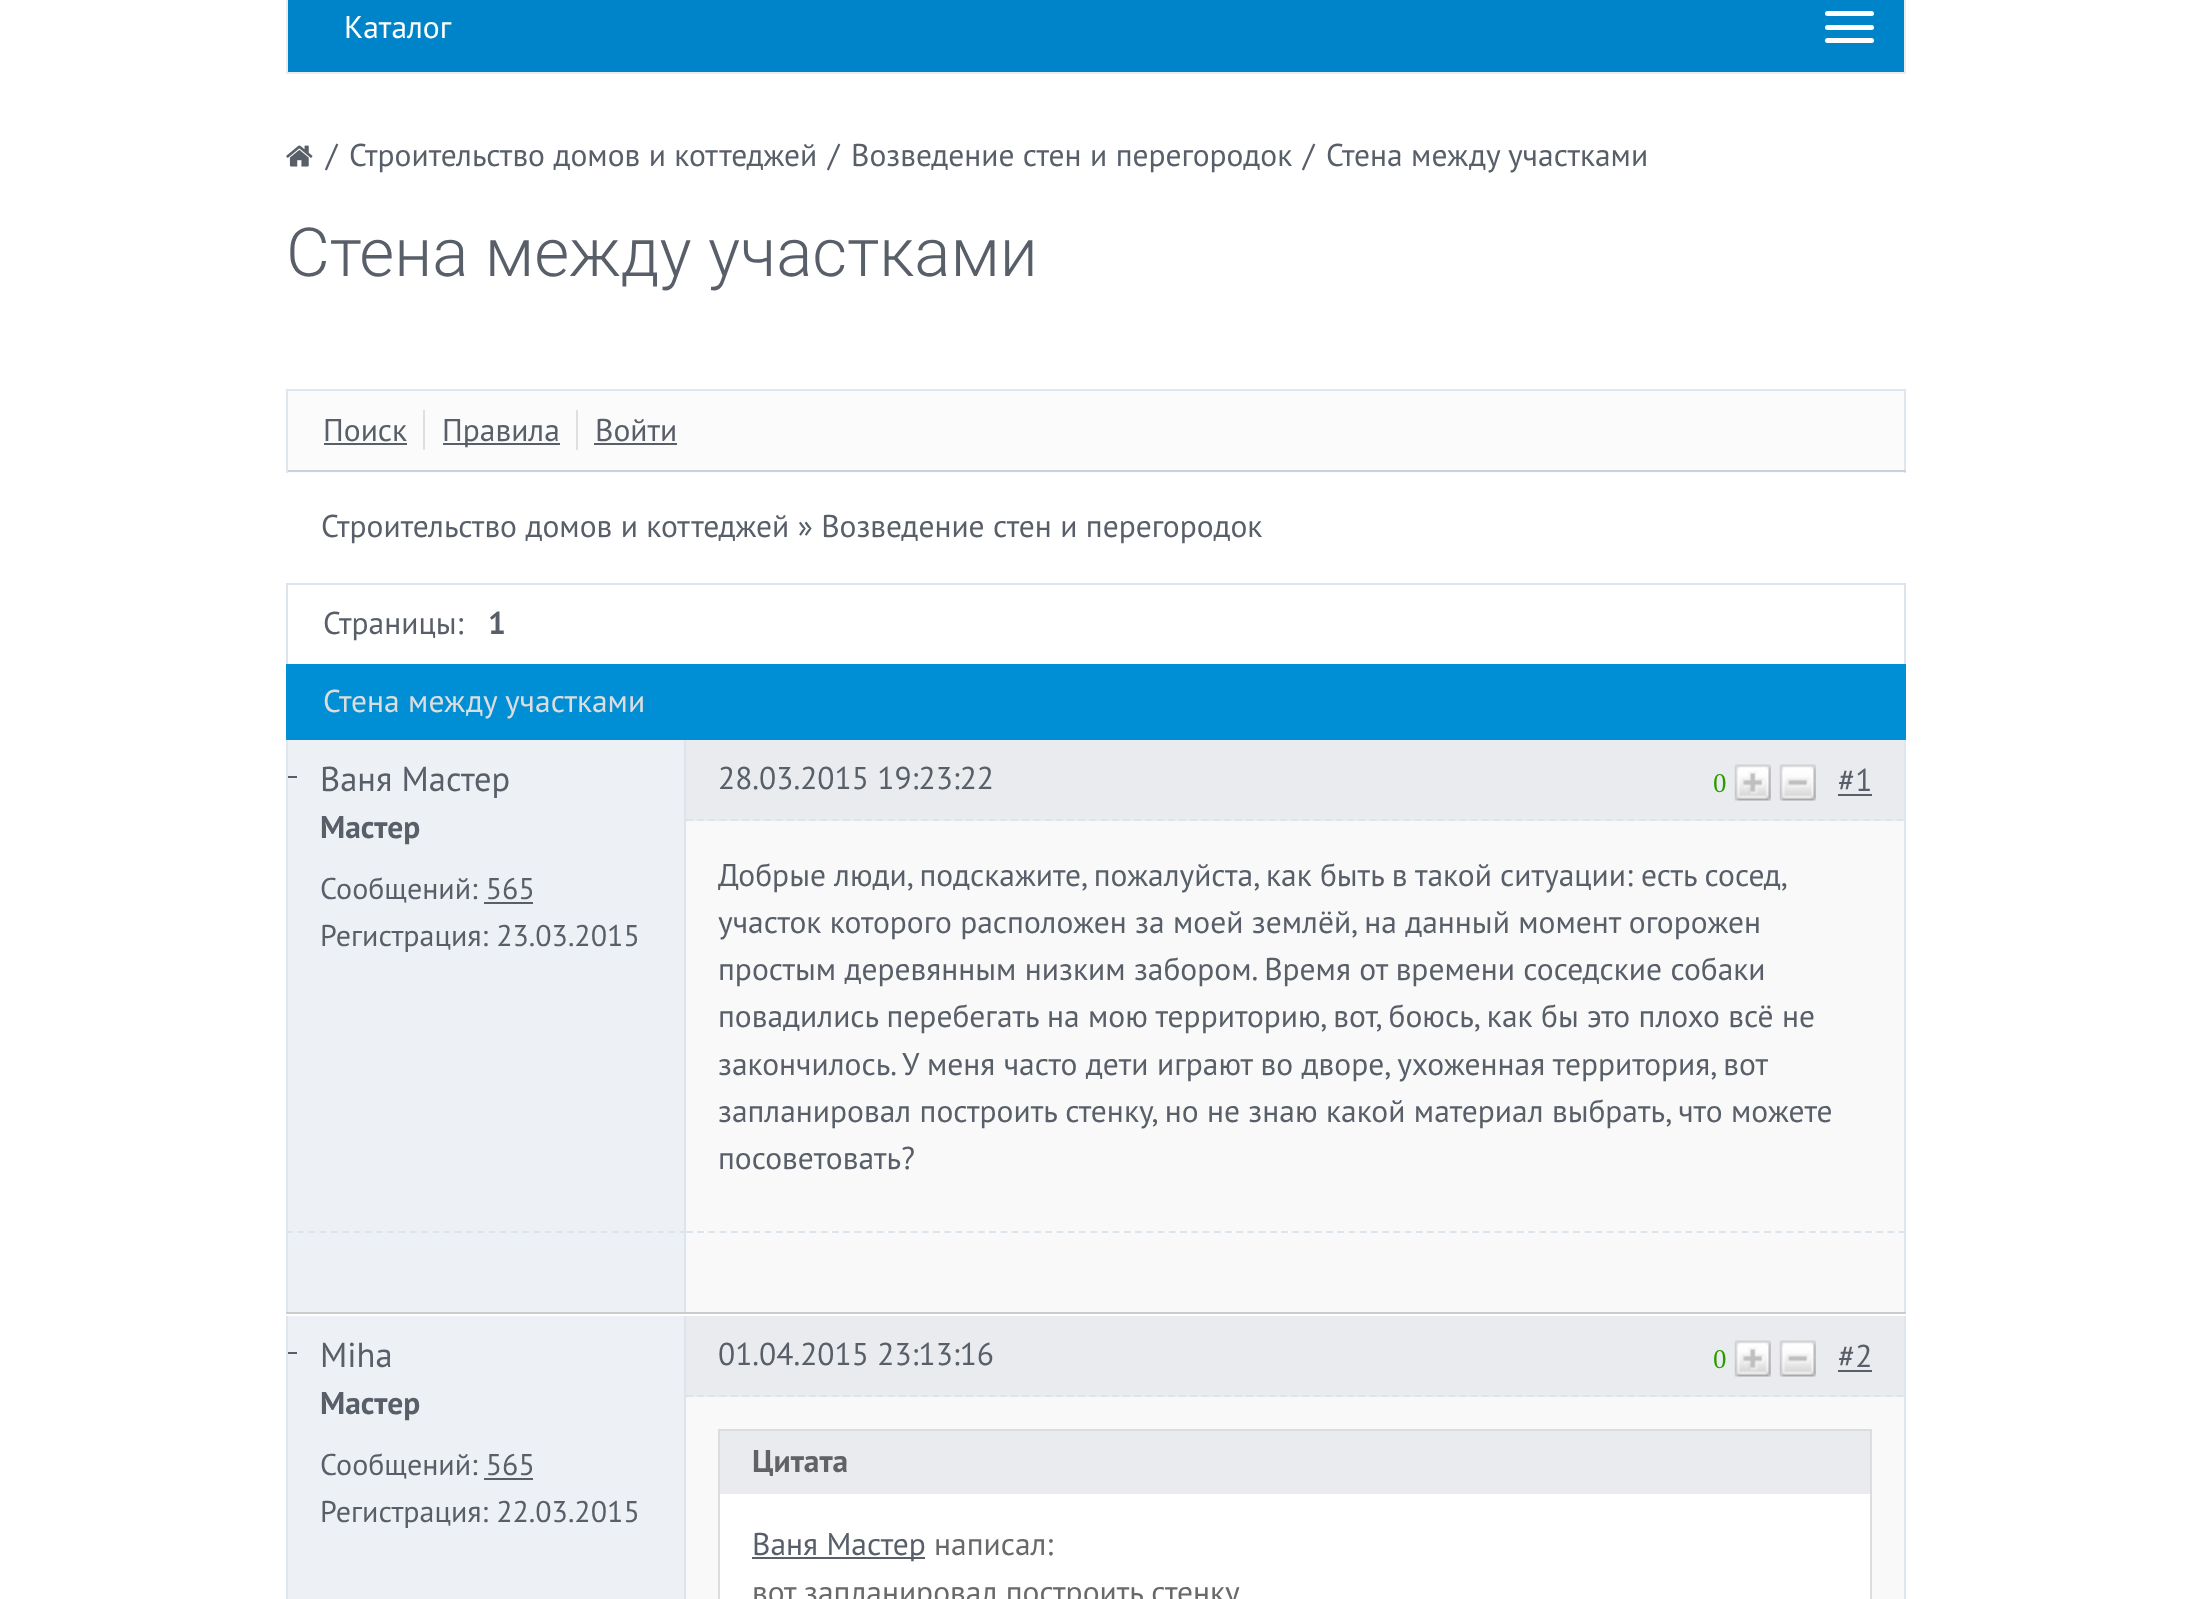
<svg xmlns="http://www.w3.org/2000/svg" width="2191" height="1599">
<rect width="100%" height="100%" fill="#fff"/>
<rect x="287" y="-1" width="1618" height="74" fill="#0084c9" stroke="#ebebeb" stroke-width="2"/>
<text x="344" y="38" style="font-family:PT Sans;font-size:31.5px;fill:#fff">Каталог</text>
<rect x="1825" y="11" width="49" height="5" rx="2.5" fill="#fff"/>
<rect x="1825" y="25" width="49" height="5" rx="2.5" fill="#fff"/>
<rect x="1825" y="38" width="49" height="5" rx="2.5" fill="#fff"/>
<image x="286" y="145" width="27" height="22" href="media/1.png"/>
<text x="326" y="166" style="font-family:PT Sans;font-size:31.5px;fill:#585f69">/</text>
<text x="349" y="166" style="font-family:PT Sans;font-size:31.5px;fill:#585f69">Строительство домов и коттеджей</text>
<text x="828" y="166" style="font-family:PT Sans;font-size:31.5px;fill:#585f69">/</text>
<text x="851" y="166" style="font-family:PT Sans;font-size:31.5px;fill:#585f69">Возведение стен и перегородок</text>
<text x="1303" y="166" style="font-family:PT Sans;font-size:31.5px;fill:#585f69">/</text>
<text x="1326" y="166" style="font-family:PT Sans;font-size:31.5px;fill:#585f69">Стена между участками</text>
<text x="286" y="276" style="font-family:Roboto;font-size:67.5px;font-weight:300;fill:#585f69">Стена между участками</text>
<rect x="288" y="391" width="1616" height="82" fill="#fbfbfb"/>
<rect x="286" y="389" width="1620" height="2" fill="#dfe6ed"/>
<rect x="1904" y="389" width="2" height="84" fill="#dfe6ed"/>
<rect x="286" y="470" width="1620" height="2" fill="#cbd1d8"/>
<rect x="286" y="389" width="2" height="84" fill="#dfe6ed"/>
<text x="323" y="441" style="font-family:PT Sans;font-size:31.5px;fill:#585f69">Поиск</text>
<rect x="423" y="410" width="2" height="40" fill="#dedfdf"/>
<rect x="324" y="443" width="83" height="2" fill="#585f69"/>
<rect x="443" y="443" width="117" height="2" fill="#585f69"/>
<text x="442" y="441" style="font-family:PT Sans;font-size:31.5px;fill:#585f69">Правила</text>
<rect x="576" y="410" width="2" height="40" fill="#dedfdf"/>
<text x="595" y="441" style="font-family:PT Sans;font-size:31.5px;fill:#585f69">Войти</text>
<rect x="594" y="443" width="83" height="2" fill="#585f69"/>
<text x="321" y="537" style="font-family:PT Sans;font-size:31.5px;fill:#585f69">Строительство домов и коттеджей » Возведение стен и перегородок</text>
<rect x="286" y="583" width="1620" height="2" fill="#dde4eb"/>
<rect x="1904" y="583" width="2" height="81" fill="#dde4eb"/>
<rect x="286" y="583" width="2" height="81" fill="#dde4eb"/>
<text x="323" y="634" style="font-family:PT Sans;font-size:31.5px;fill:#585f69">Страницы:</text>
<text x="488" y="634" style="font-family:PT Sans;font-size:31.5px;font-weight:bold;fill:#585f69">1</text>
<rect x="286" y="664" width="1620" height="76" fill="#008fd5"/>
<text x="323" y="712" style="font-family:PT Sans;font-size:31.5px;fill:#ddd">Стена между участками</text>
<rect x="286" y="1312" width="1620" height="2" fill="#ccc"/>
<rect x="288" y="740" width="396" height="572" fill="#edf1f5"/>
<rect x="684" y="740" width="2" height="491" fill="#dde4eb"/>
<rect x="286" y="740" width="2" height="491" fill="#dfe6ed"/>
<rect x="288" y="776" width="9" height="2" fill="#585f69"/>
<text x="320" y="791" style="font-family:PT Sans;font-size:34.5px;fill:#585f69">Ваня Мастер</text>
<text x="320" y="838" style="font-family:PT Sans;font-size:31.5px;font-weight:bold;fill:#585f69">Мастер</text>
<text x="320" y="899" style="font-family:PT Sans;font-size:30px;fill:#585f69">Сообщений: 565</text>
<rect x="484" y="902" width="49" height="2" fill="#585f69"/>
<text x="320" y="946" style="font-family:PT Sans;font-size:30px;fill:#585f69">Регистрация: 23.03.2015</text>
<rect x="686" y="821" width="1218" height="491" fill="#f9f9f9"/>
<rect x="1904" y="740" width="2" height="491" fill="#dfe6ed"/>
<rect x="686" y="740" width="1218" height="81" fill="#e9ebee"/>
<path d="M686 820h1217.5" fill="none" stroke="#dde4eb" stroke-width="2.2" stroke-dasharray="6.75 4.46"/>
<text x="718" y="789" style="font-family:PT Sans;font-size:31.5px;fill:#585f69">28.03.2015 19:23:22</text>
<text x="1713" y="792" style="font-family:Liberation Serif;font-size:27px;fill:#289b00">0</text>
<image x="1734" y="764" width="37" height="37" href="media/2.png"/>
<image x="1779" y="764" width="37" height="37" href="media/3.png"/>
<text x="1838" y="791" style="font-family:PT Sans;font-size:31.5px;fill:#585f69">#1</text>
<rect x="1838" y="794" width="34" height="2" fill="#585f69"/>
<text x="718" y="886" word-spacing="-0.25" style="font-family:PT Sans;font-size:31.5px;fill:#585f69">Добрые люди, подскажите, пожалуйста, как быть в такой ситуации: есть сосед,</text>
<text x="718" y="933" style="font-family:PT Sans;font-size:31.5px;fill:#585f69">участок которого расположен за моей землёй, на данный момент огорожен</text>
<text x="718" y="980" style="font-family:PT Sans;font-size:31.5px;fill:#585f69">простым деревянным низким забором. Время от времени соседские собаки</text>
<text x="718" y="1027" style="font-family:PT Sans;font-size:31.5px;fill:#585f69">повадились перебегать на мою территорию, вот, боюсь, как бы это плохо всё не</text>
<text x="718" y="1075" style="font-family:PT Sans;font-size:31.5px;fill:#585f69">закончилось. У меня часто дети играют во дворе, ухоженная территория, вот</text>
<text x="718" y="1122" style="font-family:PT Sans;font-size:31.5px;fill:#585f69">запланировал построить стенку, но не знаю какой материал выбрать, что можете</text>
<text x="718" y="1169" style="font-family:PT Sans;font-size:31.5px;fill:#585f69">посоветовать?</text>
<path d="M286 1232h400" fill="none" stroke="#dde4eb" stroke-width="2.2" stroke-dasharray="6.75 4.5"/>
<rect x="684" y="1231" width="2" height="81" fill="#dde4eb"/>
<rect x="286" y="1231" width="2" height="81" fill="#dfe6ed"/>
<path d="M686 1232h1220" fill="none" stroke="#dde4eb" stroke-width="2.2" stroke-dasharray="6.75 4.48"/>
<rect x="1904" y="1231" width="2" height="81" fill="#dfe6ed"/>
<rect x="288" y="1316" width="396" height="283" fill="#edf1f5"/>
<rect x="684" y="1316" width="2" height="283" fill="#dde4eb"/>
<rect x="286" y="1316" width="2" height="283" fill="#dfe6ed"/>
<rect x="288" y="1352" width="9" height="2" fill="#585f69"/>
<text x="320" y="1367" style="font-family:PT Sans;font-size:34.5px;fill:#585f69">Miha</text>
<text x="320" y="1414" style="font-family:PT Sans;font-size:31.5px;font-weight:bold;fill:#585f69">Мастер</text>
<text x="320" y="1475" style="font-family:PT Sans;font-size:30px;fill:#585f69">Сообщений: 565</text>
<rect x="484" y="1478" width="49" height="2" fill="#585f69"/>
<text x="320" y="1522" style="font-family:PT Sans;font-size:30px;fill:#585f69">Регистрация: 22.03.2015</text>
<rect x="686" y="1397" width="1218" height="202" fill="#f9f9f9"/>
<rect x="1904" y="1316" width="2" height="283" fill="#dfe6ed"/>
<rect x="686" y="1316" width="1218" height="81" fill="#e9ebee"/>
<path d="M686 1396h1217.5" fill="none" stroke="#dde4eb" stroke-width="2.2" stroke-dasharray="6.75 4.46"/>
<text x="718" y="1365" style="font-family:PT Sans;font-size:31.5px;fill:#585f69">01.04.2015 23:13:16</text>
<text x="1713" y="1368" style="font-family:Liberation Serif;font-size:27px;fill:#289b00">0</text>
<image x="1734" y="1340" width="37" height="37" href="media/2.png"/>
<image x="1779" y="1340" width="37" height="37" href="media/3.png"/>
<text x="1838" y="1367" style="font-family:PT Sans;font-size:31.5px;fill:#585f69">#2</text>
<rect x="1838" y="1370" width="34" height="2" fill="#585f69"/>
<rect x="718" y="1429" width="1154" height="2" fill="#ddd"/>
<rect x="1870" y="1429" width="2" height="170" fill="#ddd"/>
<rect x="718" y="1429" width="2" height="170" fill="#ddd"/>
<rect x="720" y="1431" width="1150" height="63" fill="#e9ebee"/>
<text x="752" y="1472" style="font-family:PT Sans;font-size:31.5px;font-weight:bold;fill:#606264">Цитата</text>
<rect x="720" y="1494" width="1150" height="105" fill="#fff"/>
<rect x="752" y="1557" width="173" height="2" fill="#585f69"/>
<text x="752" y="1555" style="font-family:PT Sans;font-size:31.5px;fill:#585f69">Ваня Мастер</text>
<text x="934" y="1555" style="font-family:PT Sans;font-size:31.5px;fill:#696969">написал:</text>
<text x="752" y="1603" style="font-family:PT Sans;font-size:31.5px;fill:#696969">вот запланировал построить стенку,</text>
</svg>
